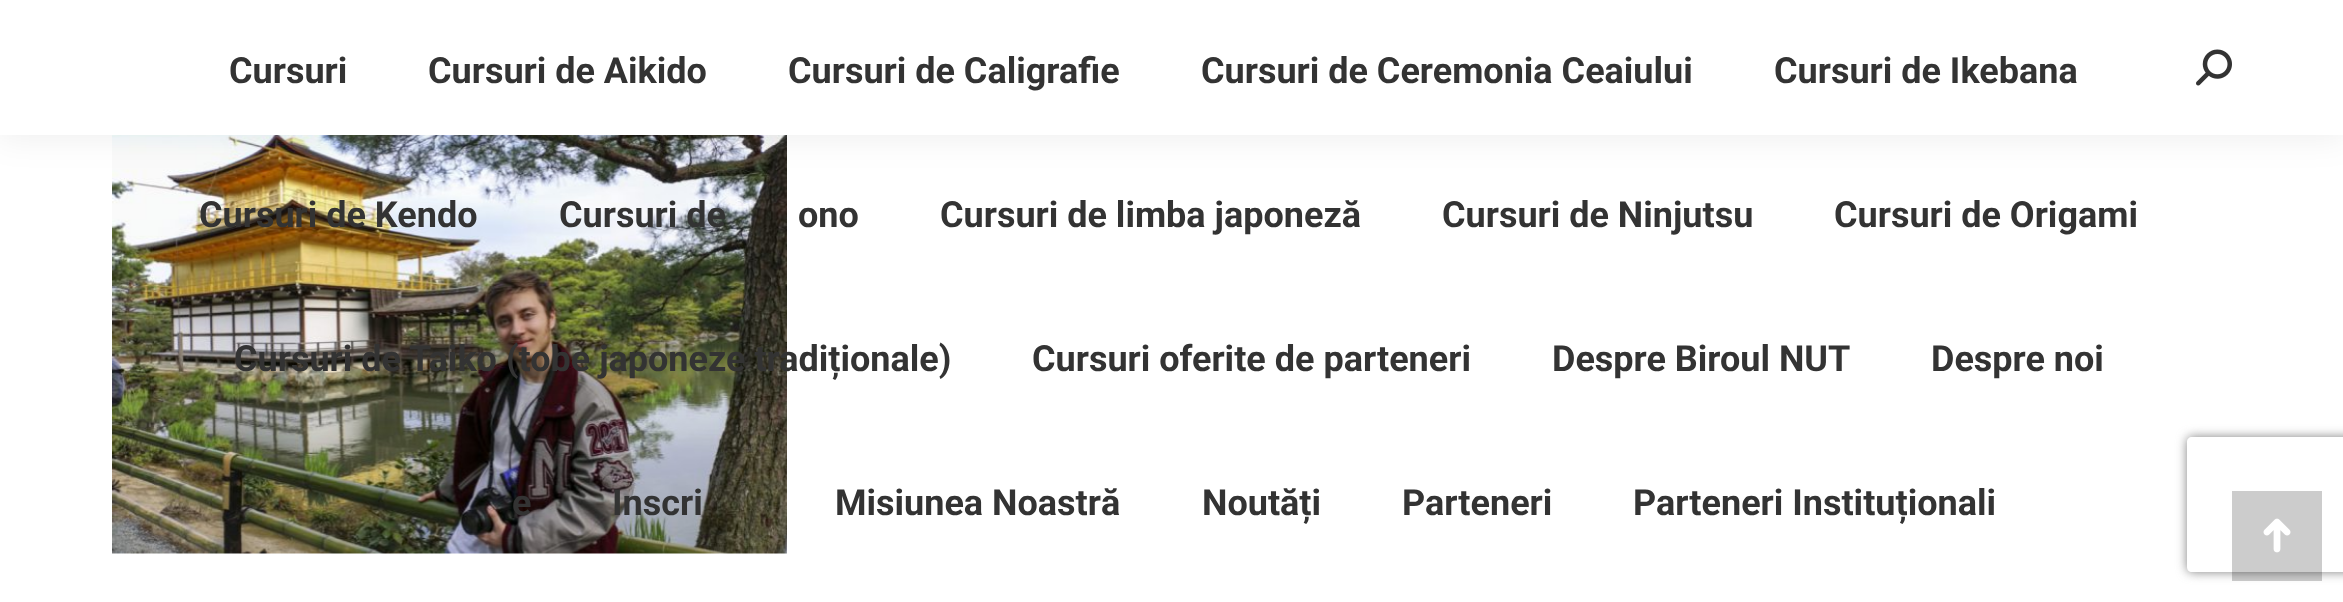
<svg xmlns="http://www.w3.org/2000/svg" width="2343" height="602">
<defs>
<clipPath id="clip1"><path d="M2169 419h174v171h-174zm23 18h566c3 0 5 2 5 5v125c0 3-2 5-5 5h-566c-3 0-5-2-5-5v-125c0-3 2-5 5-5z" clip-rule="evenodd"/></clipPath>
</defs>
<rect width="100%" height="100%" fill="#fff"/>
<image x="112" y="135" width="675" height="419" href="media/2.png"/>
<rect x="-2" y="-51" width="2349" height="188" fill="#00000012" filter="blur(17px)"/>
<rect width="2343" height="135" fill="#fff"/>
<text x="229" y="83" style="font-family:Roboto;font-size:36px;font-weight:bold;fill:#333">Cursuri</text>
<text x="428" y="83" style="font-family:Roboto;font-size:36px;font-weight:bold;fill:#333">Cursuri de Aikido</text>
<text x="788" y="83" style="font-family:Roboto;font-size:36px;font-weight:bold;fill:#333">Cursuri de Caligrafie</text>
<text x="1201" y="83" style="font-family:Roboto;font-size:36px;font-weight:bold;fill:#333">Cursuri de Ceremonia Ceaiului</text>
<text x="1774" y="83" style="font-family:Roboto;font-size:36px;font-weight:bold;fill:#333">Cursuri de Ikebana</text>
<text x="199" y="227" style="font-family:Roboto;font-size:36px;font-weight:bold;fill:#333">Cursuri de Kendo</text>
<text x="559" y="227" style="font-family:Roboto;font-size:36px;font-weight:bold;fill:#333">Cursuri de</text>
<text x="798" y="227" style="font-family:Roboto;font-size:36px;font-weight:bold;fill:#333">ono</text>
<text x="940" y="227" style="font-family:Roboto;font-size:36px;font-weight:bold;fill:#333">Cursuri de limba japoneză</text>
<text x="1442" y="227" style="font-family:Roboto;font-size:36px;font-weight:bold;fill:#333">Cursuri de Ninjutsu</text>
<text x="1834" y="227" style="font-family:Roboto;font-size:36px;font-weight:bold;fill:#333">Cursuri de Origami</text>
<text x="234" y="371" style="font-family:Roboto;font-size:36px;font-weight:bold;fill:#333">Cursuri de Taiko (tobe japoneze tradiționale)</text>
<text x="1032" y="371" style="font-family:Roboto;font-size:36px;font-weight:bold;fill:#333">Cursuri oferite de parteneri</text>
<text x="1552" y="371" style="font-family:Roboto;font-size:36px;font-weight:bold;fill:#333">Despre Biroul NUT</text>
<text x="1931" y="371" style="font-family:Roboto;font-size:36px;font-weight:bold;fill:#333">Despre noi</text>
<text x="512" y="515" style="font-family:Roboto;font-size:36px;font-weight:bold;fill:#333">e</text>
<text x="612" y="515" style="font-family:Roboto;font-size:36px;font-weight:bold;fill:#333">Inscri</text>
<text x="835" y="515" style="font-family:Roboto;font-size:36px;font-weight:bold;fill:#333">Misiunea Noastră</text>
<text x="1202" y="515" style="font-family:Roboto;font-size:36px;font-weight:bold;fill:#333">Noutăți</text>
<text x="1402" y="515" style="font-family:Roboto;font-size:36px;font-weight:bold;fill:#333">Parteneri</text>
<text x="1633" y="515" style="font-family:Roboto;font-size:36px;font-weight:bold;fill:#333">Parteneri Instituționali</text>
<image x="2196" y="49" width="36" height="37" href="media/1.png"/>
<g clip-path="url(#clip1)">
<rect x="2187" y="437" width="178" height="135" rx="5" fill="#808080" filter="blur(5.5px)"/>
</g>
<rect x="2232" y="491" width="90" height="90" fill="#00000033"/>
<image x="2263" y="518" width="28" height="35" href="media/3.png"/>
</svg>
